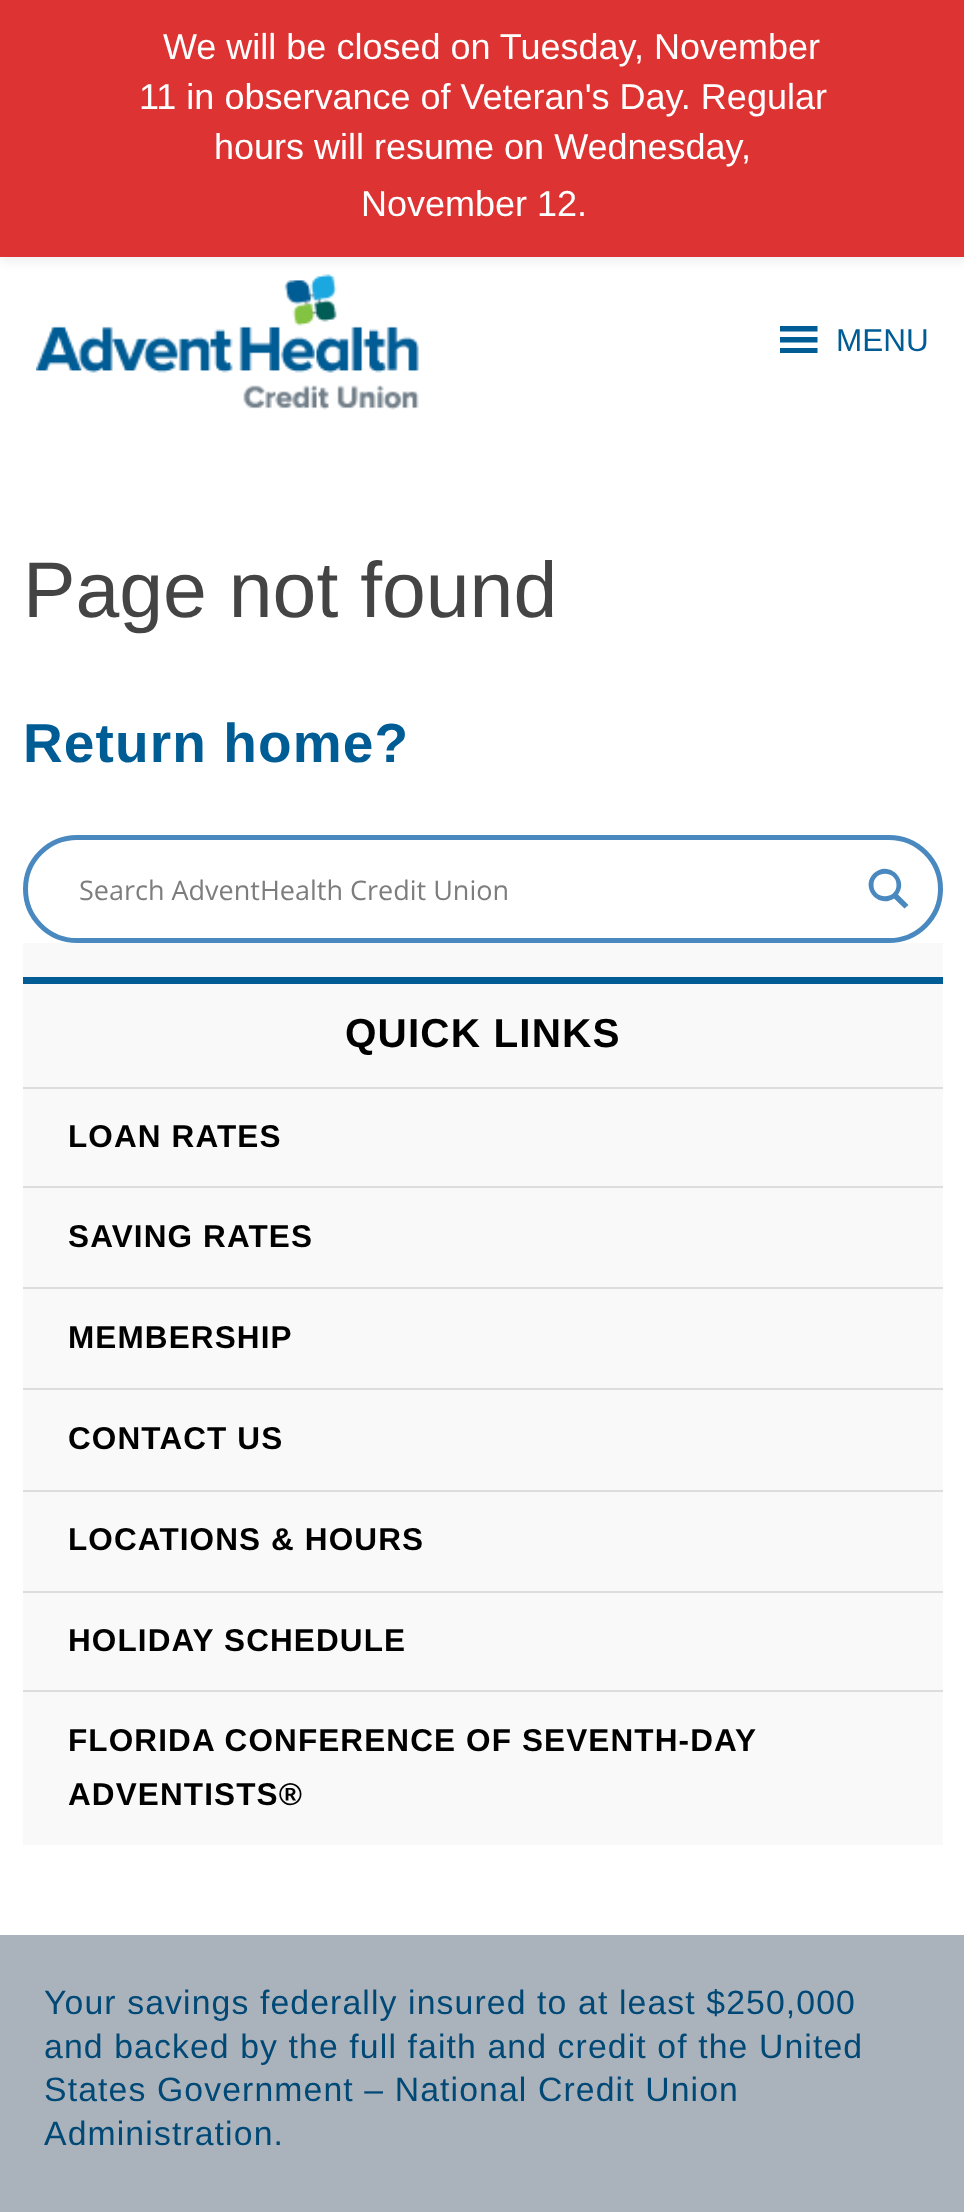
<svg xmlns="http://www.w3.org/2000/svg" width="964" height="2212">
<rect width="100%" height="100%" fill="#fff"/>
<image x="36" y="274" width="383" height="136" href="media/1.png"/>
<rect y="7" width="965" height="256" fill="#0000000d" filter="blur(4.5px)"/>
<rect width="964" height="257" fill="#d33"/>
<text x="163" y="59" style="font-family:Liberation Sans;font-size:36px;fill:#fff">We will be closed on Tuesday, November</text>
<text x="139" y="109" style="font-family:Liberation Sans;font-size:36px;fill:#fff">11 in observance of Veteran's Day. Regular</text>
<text x="214" y="159" style="font-family:Liberation Sans;font-size:36px;fill:#fff">hours will resume on Wednesday,</text>
<text x="361" y="216" style="font-family:Liberation Sans;font-size:36px;fill:#fff">November 12.</text>
<path d="M780 353h37.5v-5h-37.5zm0-27v5.5h37.5v-5.5zm0 16.5h37.5v-5.5h-37.5z" fill="#005c95"/>
<text x="836" y="351" style="font-family:Liberation Sans;font-size:31.5px;fill:#005c95">MENU</text>
<text x="23" y="617" style="font-family:Liberation Sans;font-size:78.75px;fill:#444">Page not found</text>
<text x="23" y="762" style="font-family:Liberation Sans;font-size:55px;font-weight:bold;letter-spacing:1.12px;fill:#005c95">Return home?</text>
<rect x="23" y="943" width="920" height="902" fill="#f9f9f9"/>
<rect x="25.5" y="837.5" width="915" height="103" rx="51.5" fill="none" stroke="#4a89bf" stroke-width="5"/>
<text x="79" y="900" style="font-family:Open Sans;font-size:27px;fill:#7d7d7d">Search AdventHealth Credit Union</text>
<path d="M908.5 905l-10.5-10.5c11.5-15.5-10-35-24.5-21c-14 14 5 35.5 20.5 25l10.5 10zm-35-20c0-15 23-15 23 0c0 15-23 15-23 0z" fill="#4a89bf"/>
<rect x="23" y="977" width="920" height="7" fill="#005c95"/>
<text x="345" y="1047" style="font-family:Liberation Sans;font-size:40.5px;font-weight:bold;letter-spacing:1.12px;fill:#000">QUICK LINKS</text>
<rect x="23" y="1087" width="920" height="2" fill="#ddd"/>
<text x="68" y="1147" style="font-family:Liberation Sans;font-size:31.5px;font-weight:bold;letter-spacing:1.12px;fill:#000">LOAN RATES</text>
<rect x="23" y="1186" width="920" height="2" fill="#ddd"/>
<text x="68" y="1247" style="font-family:Liberation Sans;font-size:31.5px;font-weight:bold;letter-spacing:1.12px;fill:#000">SAVING RATES</text>
<rect x="23" y="1287" width="920" height="2" fill="#ddd"/>
<text x="68" y="1348" style="font-family:Liberation Sans;font-size:31.5px;font-weight:bold;letter-spacing:1.12px;fill:#000">MEMBERSHIP</text>
<rect x="23" y="1388" width="920" height="2" fill="#ddd"/>
<text x="68" y="1449" style="font-family:Liberation Sans;font-size:31.5px;font-weight:bold;letter-spacing:1.12px;fill:#000">CONTACT US</text>
<rect x="23" y="1490" width="920" height="2" fill="#ddd"/>
<text x="68" y="1550" style="font-family:Liberation Sans;font-size:31.5px;font-weight:bold;letter-spacing:1.12px;fill:#000">LOCATIONS &amp; HOURS</text>
<rect x="23" y="1591" width="920" height="2" fill="#ddd"/>
<text x="68" y="1651" style="font-family:Liberation Sans;font-size:31.5px;font-weight:bold;letter-spacing:1.12px;fill:#000">HOLIDAY SCHEDULE</text>
<rect x="23" y="1690" width="920" height="2" fill="#ddd"/>
<text x="68" y="1751" style="font-family:Liberation Sans;font-size:31.5px;font-weight:bold;letter-spacing:1.12px;fill:#000">FLORIDA CONFERENCE OF SEVENTH-DAY</text>
<text x="68" y="1805" style="font-family:Liberation Sans;font-size:31.5px;font-weight:bold;letter-spacing:1.12px;fill:#000">ADVENTISTS®</text>
<rect y="1935" width="964" height="277" fill="#aab3bc"/>
<text x="44" y="2014" style="font-family:Liberation Sans;font-size:33.75px;letter-spacing:1.12px;fill:#004875">Your savings federally insured to at least $250,000</text>
<text x="44" y="2058" style="font-family:Liberation Sans;font-size:33.75px;letter-spacing:1.12px;fill:#004875">and backed by the full faith and credit of the United</text>
<text x="44" y="2101" style="font-family:Liberation Sans;font-size:33.75px;letter-spacing:1.12px;fill:#004875">States Government – National Credit Union</text>
<text x="44" y="2145" style="font-family:Liberation Sans;font-size:33.75px;letter-spacing:1.12px;fill:#004875">Administration.</text>
</svg>
